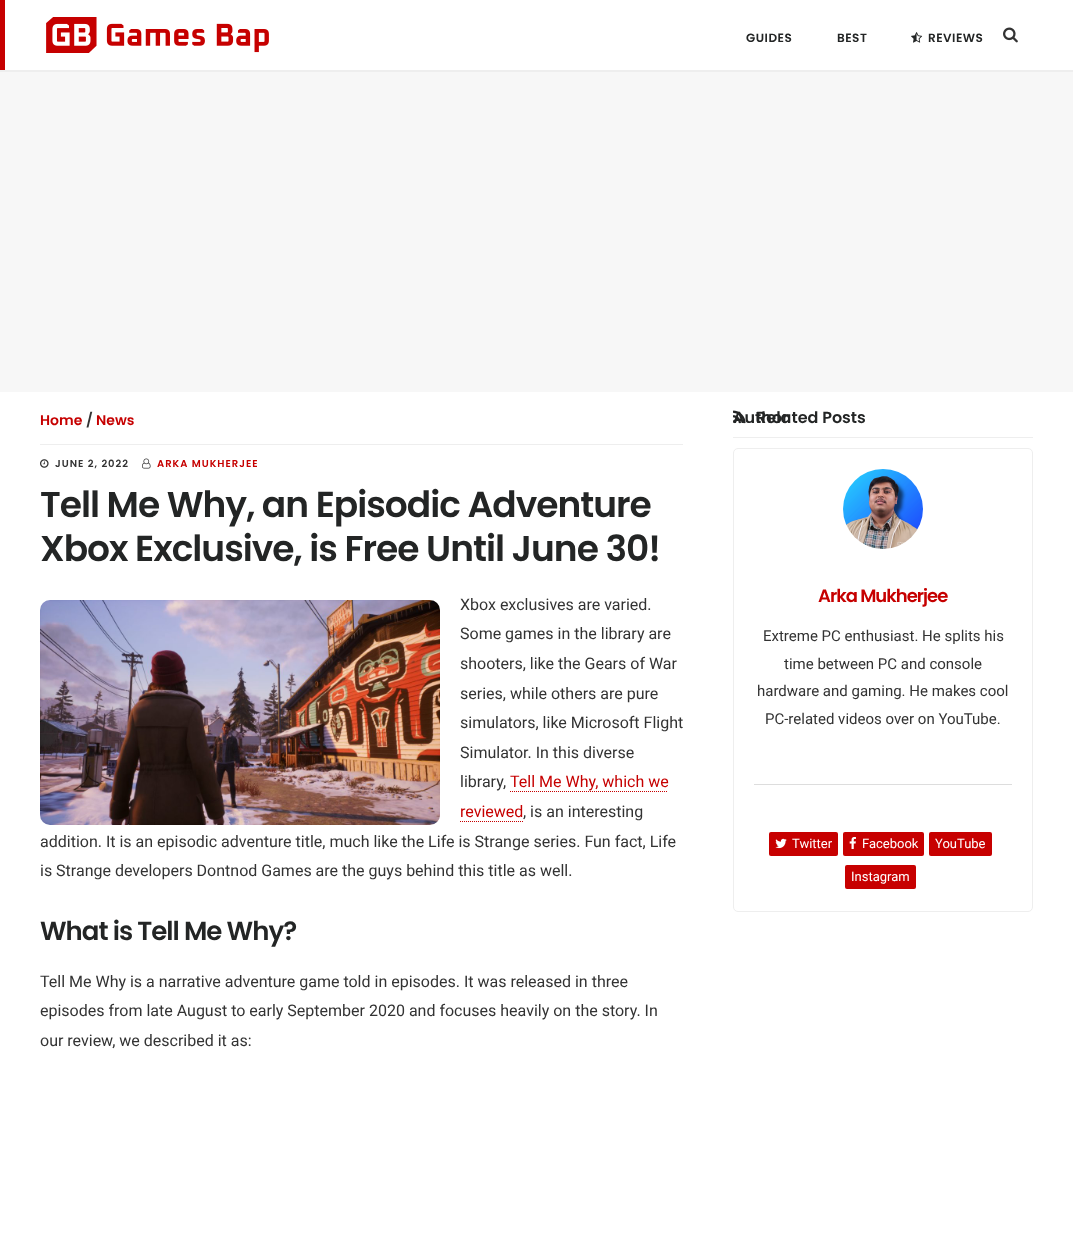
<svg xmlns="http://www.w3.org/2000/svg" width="1073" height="1250">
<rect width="100%" height="100%" fill="#fff"/>
<path d="M0 71v-71h5v70z" fill="#c60000"/>
<image x="46" y="17" width="223" height="36" href="media/1.png"/>
<text x="746" y="42" style="font-family:Poppins;font-size:12px;font-weight:600;letter-spacing:0.5px;fill:#232525">GUIDES</text>
<text x="837" y="42" style="font-family:Poppins;font-size:12px;font-weight:600;letter-spacing:0.5px;fill:#232525">BEST</text>
<image x="911" y="32" width="12" height="11" href="media/2.png"/>
<text x="928" y="42" style="font-family:Poppins;font-size:12px;font-weight:600;letter-spacing:0.5px;fill:#232525">REVIEWS</text>
<image x="1003" y="27" width="15" height="16" href="media/3.png"/>
<rect y="70" width="1073" height="2" fill="#eee"/>
<rect y="72" width="1073" height="320" fill="#f7f7f7"/>
<rect x="40" y="444" width="643" height="1" fill="#eee"/>
<text x="40" y="425" style="font-family:Poppins;font-size:14px;font-weight:600;fill:#c60000">Home</text>
<text x="86" y="425" style="font-family:Poppins;font-size:14px;font-weight:600;fill:#333">/</text>
<text x="96" y="425" style="font-family:Poppins;font-size:14px;font-weight:600;fill:#c60000">News</text>
<image x="40" y="459" width="9" height="9" href="media/4.png"/>
<text x="55" y="467" style="font-family:Poppins;font-size:10px;font-weight:600;letter-spacing:1px;fill:#333">JUNE 2, 2022</text>
<image x="142" y="458" width="9" height="11" href="media/5.png"/>
<text x="157" y="467" style="font-family:Poppins;font-size:10px;font-weight:600;letter-spacing:1px;fill:#c60000">ARKA MUKHERJEE</text>
<text x="40" y="517" style="font-family:Poppins;font-size:36px;font-weight:600;letter-spacing:-1px;fill:#232525">Tell Me Why, an Episodic Adventure</text>
<text x="40" y="561" style="font-family:Poppins;font-size:36px;font-weight:600;letter-spacing:-1px;fill:#232525">Xbox Exclusive, is Free Until June 30!</text>
<text x="460" y="610" style="font-family:Roboto;font-size:16px;fill:#333">Xbox exclusives are varied.</text>
<text x="460" y="639" style="font-family:Roboto;font-size:16px;fill:#333">Some games in the library are</text>
<text x="460" y="669" style="font-family:Roboto;font-size:16px;fill:#333">shooters, like the Gears of War</text>
<text x="460" y="699" style="font-family:Roboto;font-size:16px;fill:#333">series, while others are pure</text>
<text x="460" y="728" style="font-family:Roboto;font-size:16px;fill:#333">simulators, like Microsoft Flight</text>
<text x="460" y="758" style="font-family:Roboto;font-size:16px;fill:#333">Simulator. In this diverse</text>
<text x="460" y="787" style="font-family:Roboto;font-size:16px;fill:#333">library,</text>
<text x="510" y="787" style="font-family:Roboto;font-size:16px;fill:#c60000">Tell Me Why, which we</text>
<path d="M510 791.5h158" fill="none" stroke="#c60000" stroke-dasharray="1 1"/>
<text x="460" y="817" style="font-family:Roboto;font-size:16px;fill:#c60000">reviewed</text>
<path d="M460 821.5h63" fill="none" stroke="#c60000" stroke-dasharray="1 1"/>
<text x="523" y="817" style="font-family:Roboto;font-size:16px;fill:#333">, is an interesting</text>
<text x="40" y="847" style="font-family:Roboto;font-size:16px;fill:#333">addition. It is an episodic adventure title, much like the Life is Strange series. Fun fact, Life</text>
<text x="40" y="876" style="font-family:Roboto;font-size:16px;fill:#333">is Strange developers Dontnod Games are the guys behind this title as well.</text>
<image x="40" y="600" width="400" height="225" href="media/6.png"/>
<text x="40" y="940" style="font-family:Poppins;font-size:26px;font-weight:600;letter-spacing:-1px;fill:#232525">What is Tell Me Why?</text>
<text x="40" y="987" style="font-family:Roboto;font-size:16px;fill:#333">Tell Me Why is a narrative adventure game told in episodes. It was released in three</text>
<text x="40" y="1016" style="font-family:Roboto;font-size:16px;fill:#333">episodes from late August to early September 2020 and focuses heavily on the story. In</text>
<text x="40" y="1046" style="font-family:Roboto;font-size:16px;fill:#333">our review, we described it as:</text>
<rect x="733" y="437" width="300" height="1" fill="#eee"/>
<text x="733" y="423" style="font-family:Poppins;font-size:16px;font-weight:600;fill:#232525">Author</text>
<rect x="733.5" y="448.5" width="299" height="463" rx="4.5" fill="none" stroke="#eee"/>
<image x="843" y="469" width="80" height="80" href="media/7.png"/>
<text x="818" y="602" style="font-family:Poppins;font-size:18px;font-weight:600;letter-spacing:-1px;fill:#c60000">Arka Mukherjee</text>
<text x="763" y="641" style="font-family:Roboto;font-size:15px;fill:#333">Extreme PC enthusiast. He splits his</text>
<text x="784" y="669" style="font-family:Roboto;font-size:15px;fill:#333">time between PC and console</text>
<text x="757" y="696" style="font-family:Roboto;font-size:15px;fill:#333">hardware and gaming. He makes cool</text>
<text x="765" y="724" style="font-family:Roboto;font-size:15px;fill:#333">PC-related videos over on YouTube.</text>
<rect x="754" y="784" width="258" height="1" fill="#ddd"/>
<rect x="769" y="832" width="69" height="24" rx="2" fill="#c70000"/>
<image x="775" y="838" width="12" height="11" href="media/8.png"/>
<text x="792" y="848" style="font-family:Roboto;font-size:13px;fill:#fff">Twitter</text>
<rect x="843" y="832" width="81" height="24" rx="2" fill="#c70000"/>
<image x="849" y="836" width="7" height="13" href="media/9.png"/>
<text x="862" y="848" style="font-family:Roboto;font-size:13px;fill:#fff">Facebook</text>
<rect x="929" y="832" width="63" height="24" rx="2" fill="#c70000"/>
<text x="935" y="848" style="font-family:Roboto;font-size:13px;fill:#fff">YouTube</text>
<rect x="845" y="865" width="71" height="24" rx="2" fill="#c70000"/>
<text x="851" y="881" style="font-family:Roboto;font-size:13px;fill:#fff">Instagram</text>
<image x="733" y="410" width="13" height="14" href="media/10.png"/>
<text x="756" y="423" style="font-family:Poppins;font-size:16px;font-weight:600;fill:#232525">Related Posts</text>
</svg>
